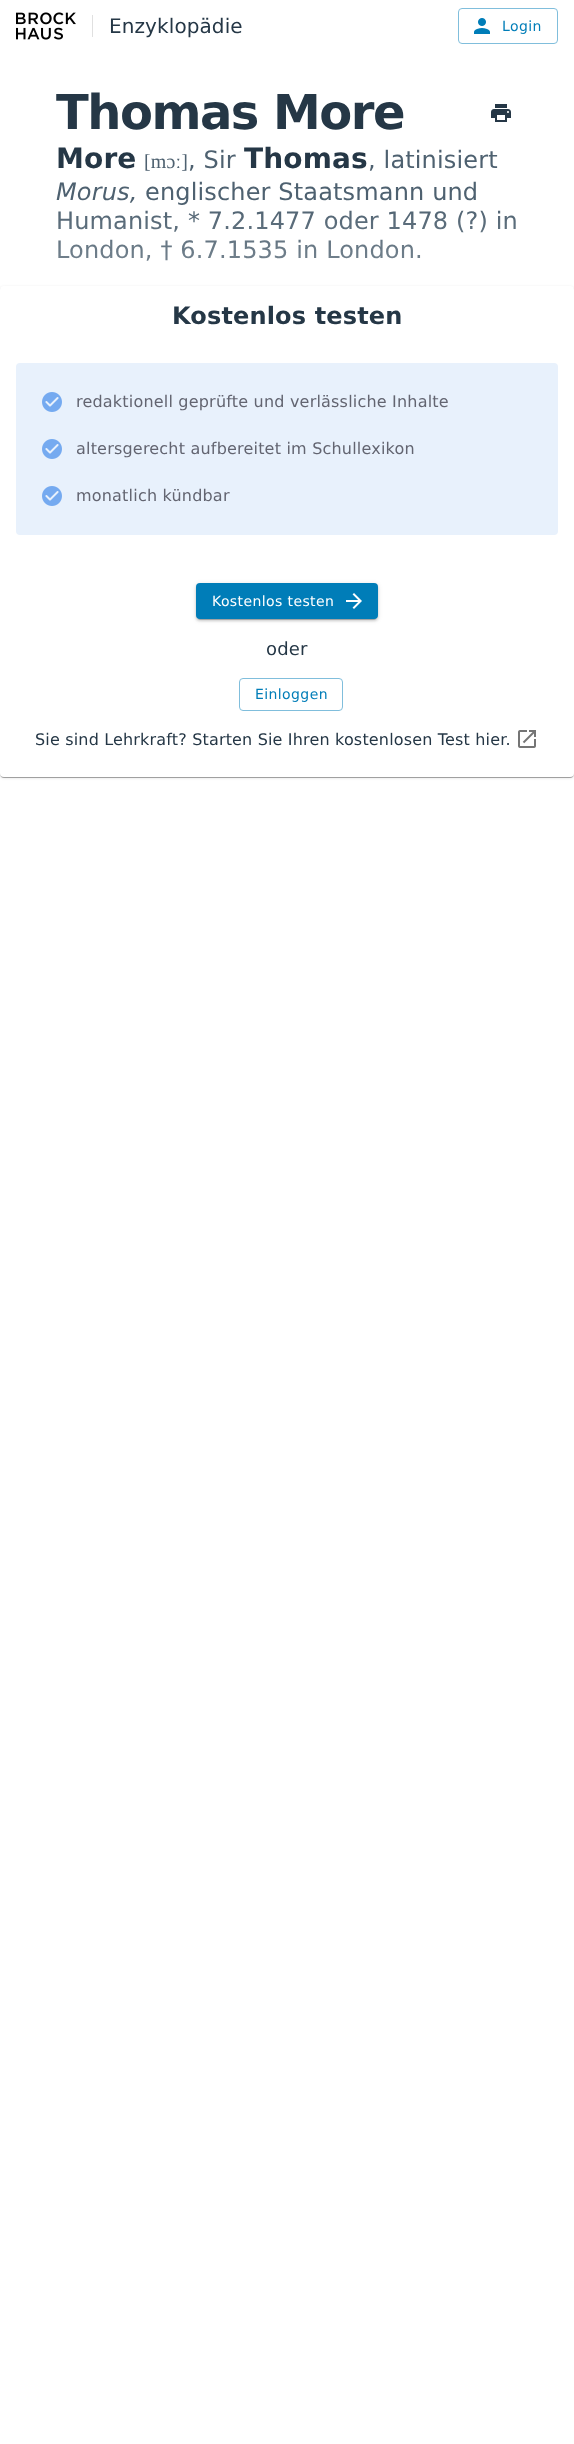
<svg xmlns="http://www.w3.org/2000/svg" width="574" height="2444">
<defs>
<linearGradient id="g1" gradientUnits="userSpaceOnUse" x1="287" y1="202" x2="287" y2="2444"><stop offset="0" stop-color="#fff" stop-opacity="0"/><stop offset="0.13" stop-color="#fff"/></linearGradient>
</defs>
<rect width="100%" height="100%" fill="#fff"/>
<image x="16" y="12" width="60" height="28" href="media/1.png"/>
<rect x="92" y="15" width="1" height="22" fill="#e0e0e0"/>
<text x="109" y="33" style="font-family:DejaVu Sans;font-size:20px;letter-spacing:0.1px;fill:#253746">Enzyklopädie</text>
<rect x="458.5" y="8.5" width="99" height="35" rx="3.5" fill="none" stroke="#80bedc"/>
<image x="474" y="18" width="16" height="16" href="media/2.png"/>
<text x="502" y="31" style="font-family:DejaVu Sans;font-size:14px;letter-spacing:0.4px;fill:#007db8">Login</text>
<text x="56" y="129" style="font-family:DejaVu Sans;font-size:48px;font-weight:bold;letter-spacing:-1.5px;fill:#253746">Thomas More</text>
<image x="491" y="104" width="20" height="18" href="media/3.png"/>
<text x="56" y="168" style="font-family:DejaVu Sans;font-size:28px;font-weight:bold;letter-spacing:0.15px;fill:#253746">More</text>
<text x="144" y="168" style="font-family:Liberation Serif;font-size:20px;letter-spacing:0.15px;fill:#4e6170">[mɔː]</text>
<text x="188" y="168" style="font-family:DejaVu Sans;font-size:24px;letter-spacing:0.15px;fill:#4e6170">, Sir</text>
<text x="244" y="168" style="font-family:DejaVu Sans;font-size:28px;font-weight:bold;letter-spacing:0.15px;fill:#253746">Thomas</text>
<text x="368" y="168" style="font-family:DejaVu Sans;font-size:24px;letter-spacing:0.15px;fill:#4e6170">, latinisiert</text>
<text x="56" y="200" style="font-family:DejaVu Sans;font-size:24px;font-style:italic;letter-spacing:0.15px;fill:#4e6170">Morus,</text>
<text x="145" y="200" style="font-family:DejaVu Sans;font-size:24px;letter-spacing:0.15px;fill:#4e6170">englischer Staatsmann und</text>
<text x="56" y="229" style="font-family:DejaVu Sans;font-size:24px;letter-spacing:0.15px;fill:#4e6170">Humanist, * 7.2.1477 oder 1478 (?) in</text>
<text x="56" y="258" style="font-family:DejaVu Sans;font-size:24px;letter-spacing:0.15px;fill:#4e6170">London, † 6.7.1535 in London.</text>
<rect x="58" y="211" width="458" height="50" fill="url(#g1)"/>
<rect y="287" width="574" height="491" rx="4" fill="#0000001f" filter="blur(1.5px)"/>
<rect y="287" width="574" height="491" rx="4" fill="#00000024" filter="blur(0.5px)"/>
<rect x="1" y="289" width="572" height="489" rx="3" fill="#00000033" filter="blur(0.5px)"/>
<rect y="286" width="574" height="491" rx="4" fill="#fff"/>
<text x="172" y="324" style="font-family:DejaVu Sans;font-size:24px;font-weight:bold;letter-spacing:0.15px;fill:#253746">Kostenlos testen</text>
<rect x="16" y="363" width="542" height="172" rx="4" fill="#e8f1fc"/>
<image x="42" y="392" width="20" height="20" href="media/4.png"/>
<text x="76" y="407" style="font-family:DejaVu Sans;font-size:16px;letter-spacing:0.2px;fill:#636571">redaktionell geprüfte und verlässliche Inhalte</text>
<image x="42" y="439" width="20" height="20" href="media/4.png"/>
<text x="76" y="454" style="font-family:DejaVu Sans;font-size:16px;letter-spacing:0.2px;fill:#636571">altersgerecht aufbereitet im Schullexikon</text>
<image x="42" y="486" width="20" height="20" href="media/4.png"/>
<text x="76" y="501" style="font-family:DejaVu Sans;font-size:16px;letter-spacing:0.2px;fill:#636571">monatlich kündbar</text>
<rect x="196" y="584" width="182" height="36" rx="4" fill="#0000001f" filter="blur(2.5px)"/>
<rect x="196" y="585" width="182" height="36" rx="4" fill="#00000024" filter="blur(1px)"/>
<rect x="198" y="588" width="178" height="32" rx="2" fill="#00000033" filter="blur(0.5px)"/>
<rect x="196" y="583" width="182" height="36" rx="4" fill="#007db8"/>
<text x="212" y="606" style="font-family:DejaVu Sans;font-size:14px;letter-spacing:0.4px;fill:#fff">Kostenlos testen</text>
<image x="346" y="593" width="16" height="16" href="media/5.png"/>
<text x="266" y="655" style="font-family:DejaVu Sans;font-size:18px;letter-spacing:0.15px;fill:#253746">oder</text>
<rect x="239.5" y="678.5" width="103" height="32" rx="3.5" fill="none" stroke="#80bedc"/>
<text x="255" y="699" style="font-family:DejaVu Sans;font-size:14px;letter-spacing:0.4px;fill:#007db8">Einloggen</text>
<text x="35" y="745" style="font-family:DejaVu Sans;font-size:16px;letter-spacing:0.17px;fill:#253746">Sie sind Lehrkraft? Starten Sie Ihren kostenlosen Test hier.</text>
<image x="518" y="730" width="18" height="18" href="media/6.png"/>
</svg>
